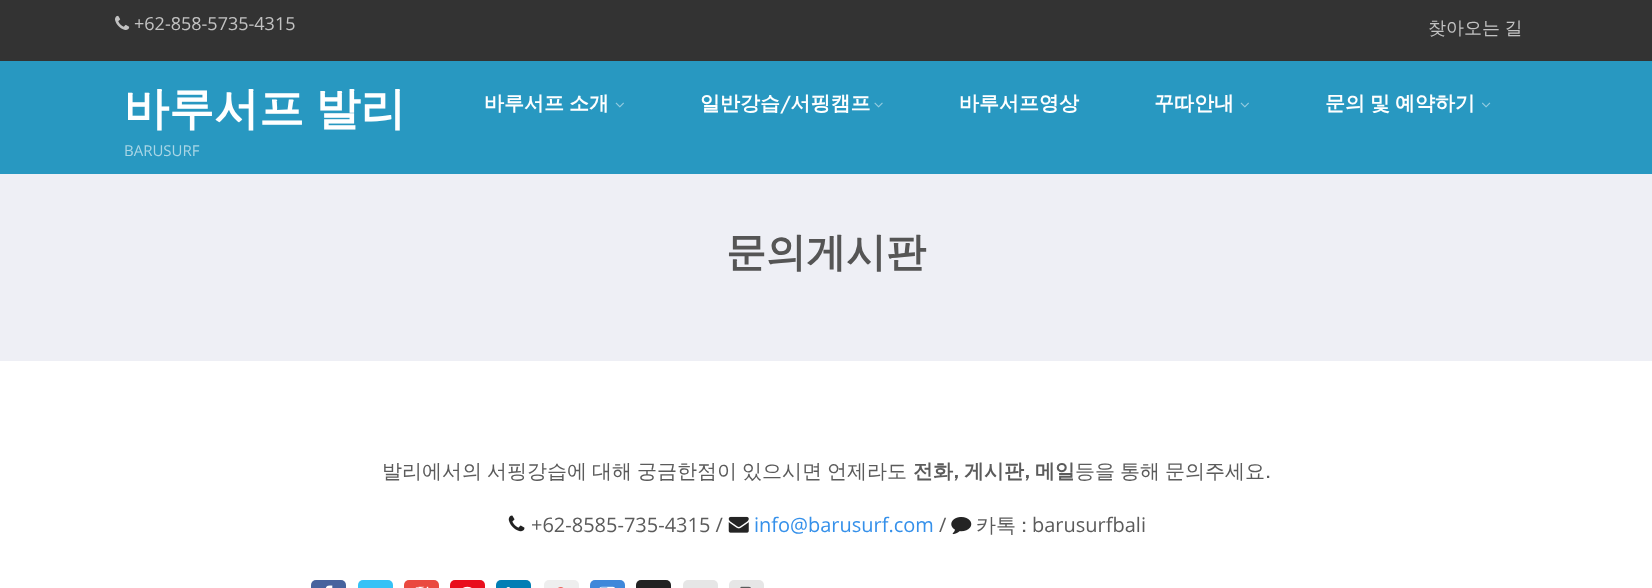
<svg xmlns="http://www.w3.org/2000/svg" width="1652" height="588">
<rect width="100%" height="100%" fill="#fff"/>
<rect y="61" width="1652" height="113" fill="#2898c1"/>
<rect width="1652" height="61" fill="#333"/>
<image x="115" y="15" width="15" height="15" href="media/1.png"/>
<text x="134" y="30" style="font-family:Open Sans;font-size:18px;fill:#c2c2c2">+62-858-5735-4315</text>
<text x="1428" y="34" word-spacing="-1" style="font-family:WenQuanYi Zen Hei;font-size:18px;font-weight:500;fill:#c2c2c2">찾아오는 길</text>
<text x="124" y="124" word-spacing="-2" style="font-family:WenQuanYi Zen Hei;font-size:45px;font-weight:bold;fill:#fff">바루서프 발리</text>
<text x="124" y="156" style="font-family:Open Sans;font-size:15px;fill:#a9d6e6">BARUSURF</text>
<text x="484" y="110" word-spacing="-1" style="font-family:WenQuanYi Zen Hei;font-size:20px;font-weight:bold;fill:#fff">바루서프 소개</text>
<image x="615" y="102" width="9" height="6" href="media/2.png"/>
<text x="700" y="110" style="font-family:WenQuanYi Zen Hei;font-size:20px;font-weight:bold;fill:#fff">일반강습/서핑캠프</text>
<image x="874" y="102" width="9" height="6" href="media/3.png"/>
<text x="959" y="110" style="font-family:WenQuanYi Zen Hei;font-size:20px;font-weight:bold;fill:#fff">바루서프영상</text>
<text x="1154" y="110" style="font-family:WenQuanYi Zen Hei;font-size:20px;font-weight:bold;fill:#fff">꾸따안내</text>
<image x="1240" y="102" width="9" height="6" href="media/2.png"/>
<text x="1325" y="110" word-spacing="-1" style="font-family:WenQuanYi Zen Hei;font-size:20px;font-weight:bold;fill:#fff">문의 및 예약하기</text>
<image x="1482" y="102" width="9" height="6" href="media/4.png"/>
<rect y="174" width="1652" height="187" fill="#eeeff5"/>
<text x="726" y="266" style="font-family:WenQuanYi Zen Hei;font-size:40px;font-weight:bold;fill:#555">문의게시판</text>
<text x="382" y="478" word-spacing="-1" style="font-family:WenQuanYi Zen Hei;font-size:20px;font-weight:500;fill:#5b5b5b">발리에서의 서핑강습에 대해 궁금한점이 있으시면 언제라도</text>
<text x="913" y="478" word-spacing="-1" style="font-family:WenQuanYi Zen Hei;font-size:20px;font-weight:bold;fill:#5b5b5b">전화, 게시판, 메일</text>
<text x="1075" y="478" word-spacing="-1" style="font-family:WenQuanYi Zen Hei;font-size:20px;font-weight:500;fill:#5b5b5b">등을 통해 문의주세요.</text>
<image x="508" y="515" width="17" height="17" href="media/5.png"/>
<text x="531" y="532" style="font-family:Open Sans;font-size:20px;fill:#5b5b5b">+62-8585-735-4315 /</text>
<image x="728" y="516" width="21" height="17" href="media/6.png"/>
<text x="754" y="532" style="font-family:Open Sans;font-size:20px;fill:#3590ea">info@barusurf.com</text>
<text x="939" y="532" style="font-family:Open Sans;font-size:20px;fill:#5b5b5b">/</text>
<image x="951" y="517" width="21" height="18" href="media/7.png"/>
<text x="976" y="532" word-spacing="-1" style="font-family:WenQuanYi Zen Hei;font-size:20px;font-weight:500;fill:#5b5b5b">카톡 :</text>
<text x="1032" y="532" style="font-family:Open Sans;font-size:20px;fill:#5b5b5b">barusurfbali</text>
<rect x="311" y="580" width="35" height="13" rx="5" fill="#47639e"/>
<image x="325" y="585" width="8" height="3" href="media/8.png"/>
<rect x="358" y="580" width="35" height="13" rx="5" fill="#35c2f6"/>
<rect x="404" y="580" width="35" height="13" rx="5" fill="#ea493f"/>
<image x="415" y="586" width="14" height="2" href="media/9.png"/>
<rect x="450" y="580" width="35" height="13" rx="5" fill="#e90d1c"/>
<image x="463" y="586" width="9" height="2" href="media/10.png"/>
<rect x="496" y="580" width="35" height="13" rx="5" fill="#017eb4"/>
<image x="506" y="587" width="4" height="1" href="media/11.png"/>
<rect x="544" y="580" width="35" height="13" rx="5" fill="#eee"/>
<image x="558" y="587" width="6" height="1" href="media/12.png"/>
<rect x="590" y="580" width="35" height="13" rx="5" fill="#4088da"/>
<image x="599" y="586" width="16" height="2" href="media/13.png"/>
<rect x="636" y="580" width="35" height="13" rx="5" fill="#222"/>
<rect x="683" y="580" width="35" height="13" rx="5" fill="#e6e6e6"/>
<rect x="729" y="580" width="35" height="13" rx="5" fill="#e6e6e6"/>
<image x="740" y="586" width="11" height="2" href="media/14.png"/>
</svg>
